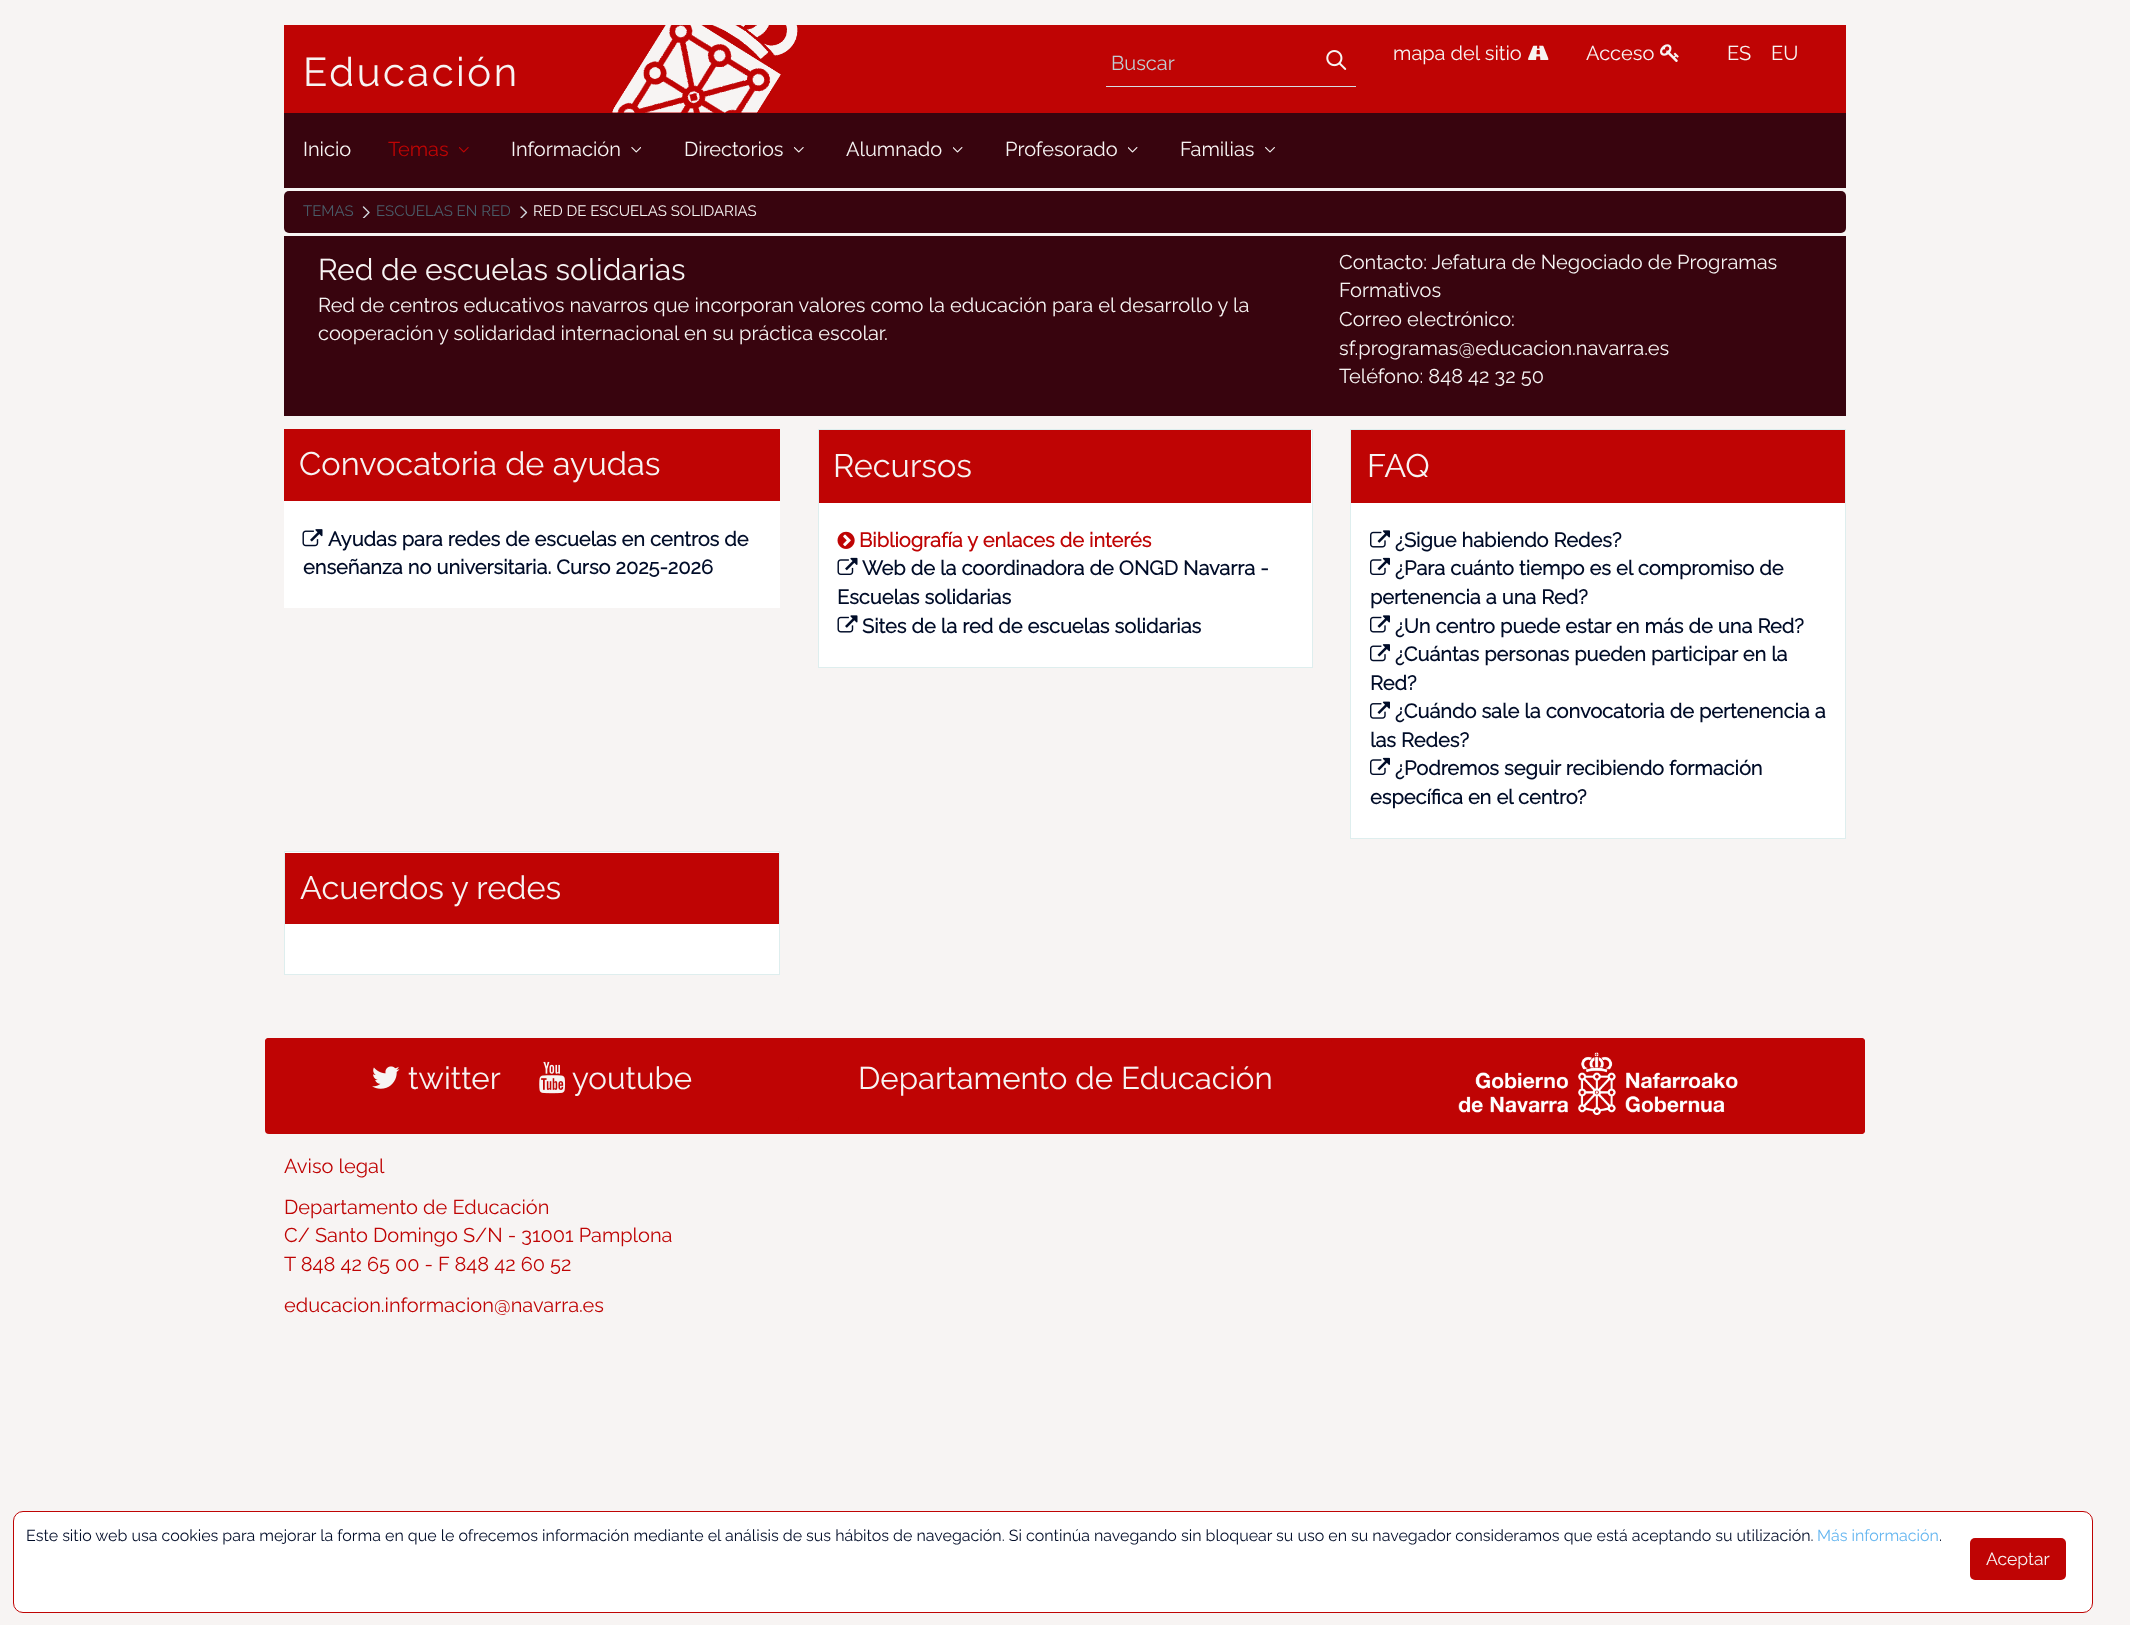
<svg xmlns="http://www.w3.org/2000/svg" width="2130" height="1625">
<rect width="100%" height="100%" fill="#f7f4f3"/>
<rect x="284" y="25" width="1562" height="88" fill="#bf0404"/>
<image x="612" y="25" width="186" height="88" href="media/1.png"/>
<text x="303" y="86" style="font-family:Raleway;font-size:40px;font-weight:100;letter-spacing:2.5px;fill:#f7f4f3">Educación</text>
<text x="1393" y="60" style="font-family:Raleway;font-size:20px;font-weight:100;fill:#f7f4f3">mapa del sitio</text>
<image x="1528" y="45" width="21" height="15" href="media/2.png"/>
<text x="1586" y="60" style="font-family:Raleway;font-size:20px;font-weight:100;fill:#f7f4f3">Acceso</text>
<image x="1660" y="44" width="19" height="18" href="media/3.png"/>
<text x="1727" y="60" style="font-family:Raleway;font-size:20px;font-weight:100;fill:#f7f4f3">ES</text>
<text x="1771" y="60" style="font-family:Raleway;font-size:20px;font-weight:100;fill:#f7f4f3">EU</text>
<rect x="1106" y="86" width="250" height="1" fill="#d6dce2"/>
<text x="1111" y="70" style="font-family:Raleway;font-size:20px;font-weight:100;fill:#c0ccd3">Buscar</text>
<image x="1326" y="50" width="21" height="20" href="media/4.png"/>
<rect x="284" y="113" width="1562" height="75" fill="#38040e"/>
<text x="303" y="156" style="font-family:Raleway;font-size:20px;font-weight:100;fill:#f7f4f3">Inicio</text>
<text x="388" y="156" style="font-family:Raleway;font-size:20px;font-weight:100;fill:#bf0404">Temas</text>
<image x="459" y="147" width="10" height="6" href="media/5.png"/>
<text x="511" y="156" style="font-family:Raleway;font-size:20px;font-weight:100;fill:#f7f4f3">Información</text>
<image x="631" y="147" width="10" height="6" href="media/6.png"/>
<text x="684" y="156" style="font-family:Raleway;font-size:20px;font-weight:100;fill:#f7f4f3">Directorios</text>
<image x="794" y="147" width="10" height="6" href="media/7.png"/>
<text x="846" y="156" style="font-family:Raleway;font-size:20px;font-weight:100;fill:#f7f4f3">Alumnado</text>
<image x="953" y="147" width="10" height="6" href="media/8.png"/>
<text x="1005" y="156" style="font-family:Raleway;font-size:20px;font-weight:100;fill:#f7f4f3">Profesorado</text>
<image x="1128" y="147" width="10" height="6" href="media/8.png"/>
<text x="1180" y="156" style="font-family:Raleway;font-size:20px;font-weight:100;fill:#f7f4f3">Familias</text>
<image x="1265" y="147" width="10" height="6" href="media/9.png"/>
<rect x="284" y="191" width="1562" height="42" rx="5" fill="#38040e"/>
<text x="303" y="216" style="font-family:Raleway;font-size:15px;font-weight:100;fill:#4a5e6a">TEMAS</text>
<image x="362" y="206" width="8" height="12" href="media/10.png"/>
<text x="376" y="216" style="font-family:Raleway;font-size:15px;font-weight:100;fill:#4a5e6a">ESCUELAS EN RED</text>
<image x="520" y="206" width="8" height="12" href="media/11.png"/>
<text x="533" y="216" style="font-family:Raleway;font-size:15px;font-weight:100;fill:#f7f4f3">RED DE ESCUELAS SOLIDARIAS</text>
<rect x="284" y="236" width="1562" height="180" fill="#38040e"/>
<text x="318" y="280" style="font-family:Raleway;font-size:30px;font-weight:100;fill:#f7f4f3">Red de escuelas solidarias</text>
<text x="318" y="312" style="font-family:Raleway;font-size:20px;font-weight:100;fill:#f7f4f3">Red de centros educativos navarros que incorporan valores como la educación para el desarrollo y la</text>
<text x="318" y="340" style="font-family:Raleway;font-size:20px;font-weight:100;fill:#f7f4f3">cooperación y solidaridad internacional en su práctica escolar.</text>
<text x="1339" y="269" style="font-family:Raleway;font-size:20px;font-weight:100;fill:#f7f4f3">Contacto: Jefatura de Negociado de Programas</text>
<text x="1339" y="297" style="font-family:Raleway;font-size:20px;font-weight:100;fill:#f7f4f3">Formativos</text>
<text x="1339" y="326" style="font-family:Raleway;font-size:20px;font-weight:100;fill:#f7f4f3">Correo electrónico:</text>
<text x="1339" y="355" style="font-family:Raleway;font-size:20px;font-weight:100;fill:#f7f4f3">sf.programas@educacion.navarra.es</text>
<text x="1339" y="383" style="font-family:Raleway;font-size:20px;font-weight:100;fill:#f7f4f3">Teléfono: 848 42 32 50</text>
<rect x="284" y="501" width="496" height="107" fill="#fff"/>
<rect x="284" y="429" width="496" height="72" fill="#bf0404"/>
<text x="299" y="475" style="font-family:Raleway;font-size:32.5px;font-weight:100;fill:#f7f4f3">Convocatoria de ayudas</text>
<image x="302" y="529" width="21" height="18" href="media/12.png"/>
<text x="328" y="546" style="font-family:Raleway;font-size:20px;font-weight:bold;fill:#000c28">Ayudas para redes de escuelas en centros de</text>
<text x="303" y="574" style="font-family:Raleway;font-size:20px;font-weight:bold;fill:#000c28">enseñanza no universitaria. Curso 2025-2026</text>
<rect x="818.5" y="429.5" width="494" height="238" fill="#fff" stroke="#deeeee"/>
<rect x="819" y="430" width="492" height="73" fill="#bf0404"/>
<text x="833" y="477" style="font-family:Raleway;font-size:32.5px;font-weight:100;fill:#f7f4f3">Recursos</text>
<image x="837" y="531" width="18" height="18" href="media/13.png"/>
<text x="859" y="547" style="font-family:Raleway;font-size:20px;font-weight:bold;fill:#bf0404">Bibliografía y enlaces de interés</text>
<image x="837" y="557" width="21" height="18" href="media/14.png"/>
<text x="862" y="575" style="font-family:Raleway;font-size:20px;font-weight:bold;fill:#000c28">Web de la coordinadora de ONGD Navarra -</text>
<text x="837" y="604" style="font-family:Raleway;font-size:20px;font-weight:bold;fill:#000c28">Escuelas solidarias</text>
<image x="837" y="615" width="21" height="18" href="media/15.png"/>
<text x="862" y="633" style="font-family:Raleway;font-size:20px;font-weight:bold;fill:#000c28">Sites de la red de escuelas solidarias</text>
<rect x="1351" y="503" width="494" height="335" fill="#fff"/>
<rect x="1350.5" y="429.5" width="495" height="409" fill="none" stroke="#deeeee"/>
<rect x="1351" y="430" width="494" height="73" fill="#bf0404"/>
<text x="1367" y="477" style="font-family:Raleway;font-size:32.5px;font-weight:100;fill:#f7f4f3">FAQ</text>
<image x="1370" y="530" width="20" height="18" href="media/16.png"/>
<text x="1395" y="547" style="font-family:Raleway;font-size:20px;font-weight:bold;fill:#000c28">¿Sigue habiendo Redes?</text>
<image x="1370" y="557" width="20" height="18" href="media/17.png"/>
<text x="1395" y="575" style="font-family:Raleway;font-size:20px;font-weight:bold;fill:#000c28">¿Para cuánto tiempo es el compromiso de</text>
<text x="1370" y="604" style="font-family:Raleway;font-size:20px;font-weight:bold;fill:#000c28">pertenencia a una Red?</text>
<image x="1370" y="615" width="20" height="18" href="media/16.png"/>
<text x="1395" y="633" style="font-family:Raleway;font-size:20px;font-weight:bold;fill:#000c28">¿Un centro puede estar en más de una Red?</text>
<image x="1370" y="644" width="20" height="18" href="media/18.png"/>
<text x="1395" y="661" style="font-family:Raleway;font-size:20px;font-weight:bold;fill:#000c28">¿Cuántas personas pueden participar en la</text>
<text x="1370" y="690" style="font-family:Raleway;font-size:20px;font-weight:bold;fill:#000c28">Red?</text>
<image x="1370" y="701" width="20" height="18" href="media/19.png"/>
<text x="1395" y="718" style="font-family:Raleway;font-size:20px;font-weight:bold;fill:#000c28">¿Cuándo sale la convocatoria de pertenencia a</text>
<text x="1370" y="747" style="font-family:Raleway;font-size:20px;font-weight:bold;fill:#000c28">las Redes?</text>
<image x="1370" y="757" width="20" height="18" href="media/17.png"/>
<text x="1395" y="775" style="font-family:Raleway;font-size:20px;font-weight:bold;fill:#000c28">¿Podremos seguir recibiendo formación</text>
<text x="1370" y="804" style="font-family:Raleway;font-size:20px;font-weight:bold;fill:#000c28">específica en el centro?</text>
<rect x="284.5" y="851.5" width="495" height="123" fill="#fff" stroke="#deeeee"/>
<rect x="285" y="853" width="494" height="71" fill="#bf0404"/>
<text x="300" y="899" style="font-family:Raleway;font-size:32.5px;font-weight:100;fill:#f7f4f3">Acuerdos y redes</text>
<rect x="265" y="1038" width="1600" height="96" rx="4" fill="#bf0404"/>
<rect x="265" y="1038" width="534" height="83" rx="4" fill="#bf0404"/>
<image x="372" y="1066" width="28" height="23" href="media/20.png"/>
<text x="408" y="1089" style="font-family:Raleway;font-size:31.25px;font-weight:100;fill:#f7f4f3">twitter</text>
<image x="539" y="1061" width="27" height="33" href="media/21.png"/>
<text x="572" y="1089" style="font-family:Raleway;font-size:31.25px;font-weight:100;fill:#f7f4f3">youtube</text>
<text x="858" y="1089" style="font-family:Raleway;font-size:31.25px;font-weight:100;fill:#f7f4f3">Departamento de Educación</text>
<rect x="1331" y="1038" width="534" height="96" rx="4" fill="#bf0404"/>
<image x="1458" y="1052" width="280" height="63" href="media/22.png"/>
<text x="284" y="1173" style="font-family:Raleway;font-size:20px;font-weight:100;fill:#bf0404">Aviso legal</text>
<text x="284" y="1214" style="font-family:Raleway;font-size:20px;font-weight:100;fill:#bf0404">Departamento de Educación</text>
<text x="284" y="1242" style="font-family:Raleway;font-size:20px;font-weight:100;fill:#bf0404">C/ Santo Domingo S/N - 31001 Pamplona</text>
<text x="284" y="1271" style="font-family:Raleway;font-size:20px;font-weight:100;fill:#bf0404">T 848 42 65 00 - F 848 42 60 52</text>
<text x="284" y="1312" style="font-family:Raleway;font-size:20px;font-weight:100;fill:#bf0404">educacion.informacion@navarra.es</text>
<rect x="13.5" y="1511.5" width="2079" height="101" rx="9.5" fill="#fff" stroke="#bf0404"/>
<text x="26" y="1541" style="font-family:Raleway;font-size:16px;font-weight:100;fill:#000c28">Este sitio web usa cookies para mejorar la forma en que le ofrecemos información mediante el análisis de sus hábitos de navegación. Si continúa navegando sin bloquear su uso en su navegador consideramos que está aceptando su utilización.</text>
<text x="1817" y="1541" style="font-family:Raleway;font-size:16px;font-weight:100;fill:#65b6f0">Más información</text>
<text x="1939" y="1541" style="font-family:Raleway;font-size:16px;font-weight:100;fill:#000c28">.</text>
<rect x="1970" y="1538" width="96" height="42" rx="5" fill="#bf0404"/>
<text x="1986" y="1565" style="font-family:Raleway;font-size:17.5px;font-weight:100;fill:#f7f4f3">Aceptar</text>
</svg>
